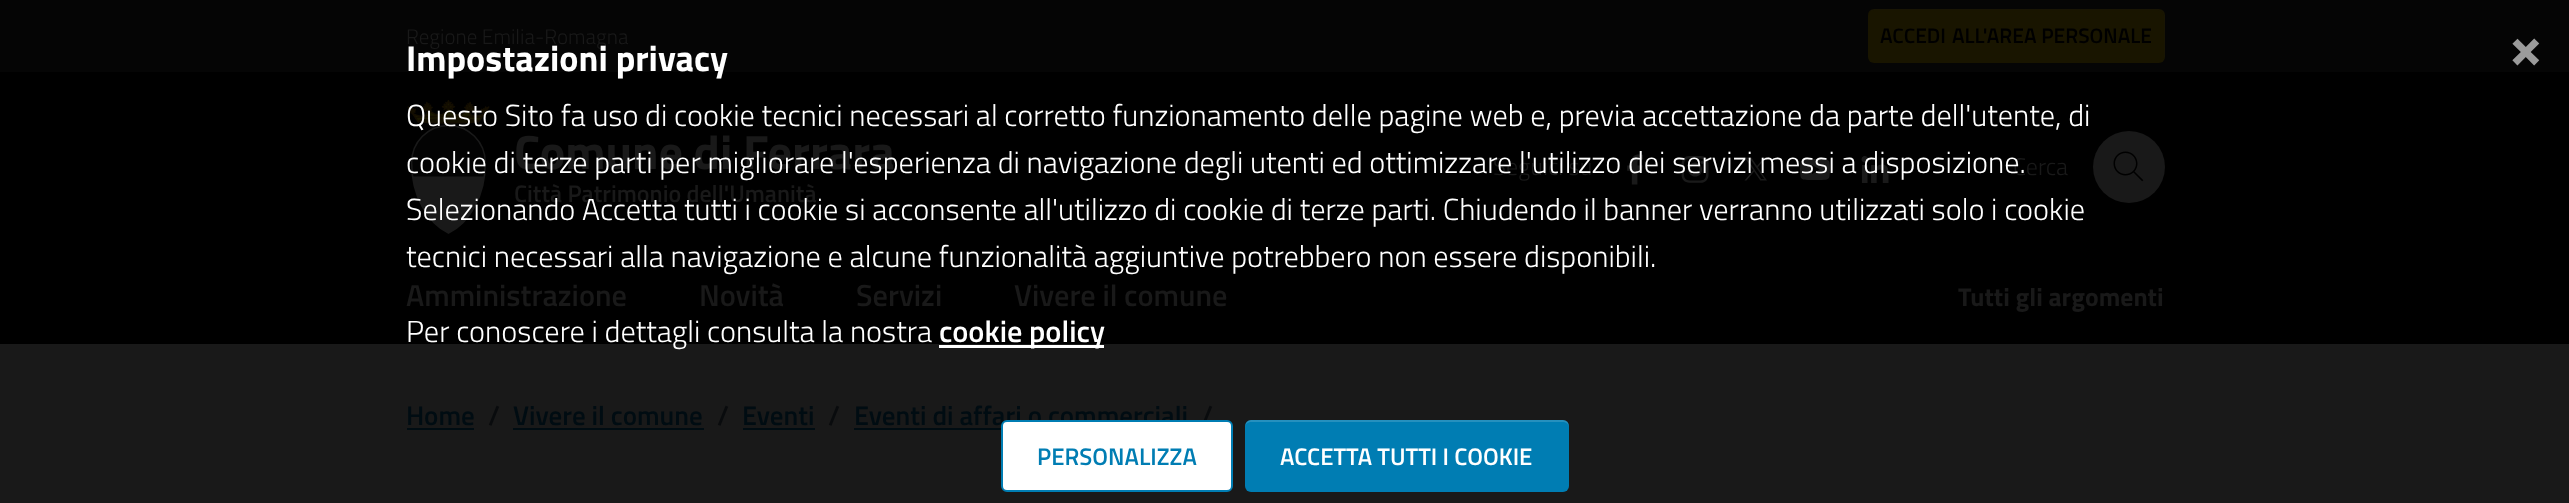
<svg xmlns="http://www.w3.org/2000/svg" width="2569" height="503">
<rect width="100%" height="100%" fill="#191919"/>
<rect width="2569" height="72" fill="#050505"/>
<text x="406" y="44" style="font-family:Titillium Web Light;font-size:21px;font-weight:300;fill:#191919">Regione Emilia-Romagna</text>
<rect x="1868" y="9" width="297" height="54" rx="6" fill="#191500"/>
<path d="M1874 10h284c4 0 6 3 6 6v42l-1 3c1-1 2-2 2-4v-42c0-3-3-6-6-6h-285c-3 0-6 3-6 6v1c0-3 2-6 6-6z" fill="#19191926"/>
<text x="1880" y="43" style="font-family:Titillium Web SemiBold;font-size:21px;font-weight:600;fill:#000">ACCEDI</text>
<text x="1952" y="43" style="font-family:Titillium Web SemiBold;font-size:21px;font-weight:600;fill:#000">ALL'AREA PERSONALE</text>
<rect y="72" width="2569" height="272" fill="#000"/>
<image x="407" y="100" width="83" height="134" href="media/1.png"/>
<text x="514" y="169" style="font-family:Titillium Web;font-size:48px;font-weight:bold;fill:#191919">Comune di Ferrara</text>
<text x="514" y="202" style="font-family:Titillium Web SemiBold;font-size:24px;font-weight:600;fill:#191919">Città Patrimonio dell'Umanità</text>
<text x="1493" y="175" style="font-family:Titillium Web Light;font-size:24px;font-weight:300;fill:#191919">Seguici su</text>
<image x="1627" y="154" width="17" height="31" href="media/2.png"/>
<image x="1681" y="156" width="28" height="27" href="media/3.png"/>
<image x="1744" y="157" width="23" height="24" href="media/4.png"/>
<image x="1800" y="159" width="30" height="21" href="media/5.png"/>
<image x="1861" y="156" width="28" height="27" href="media/6.png"/>
<text x="2013" y="175" style="font-family:Titillium Web Light;font-size:24px;font-weight:300;fill:#191919">Cerca</text>
<circle cx="2129" cy="167" r="36" fill="#191919"/>
<image x="2113" y="151" width="31" height="31" href="media/7.png"/>
<text x="406" y="306" style="font-family:Titillium Web SemiBold;font-size:30.38px;font-weight:600;fill:#191919">Amministrazione</text>
<text x="699" y="306" style="font-family:Titillium Web SemiBold;font-size:30.38px;font-weight:600;fill:#191919">Novità</text>
<text x="856" y="306" style="font-family:Titillium Web SemiBold;font-size:30.38px;font-weight:600;fill:#191919">Servizi</text>
<text x="1014" y="306" style="font-family:Titillium Web SemiBold;font-size:30.38px;font-weight:600;fill:#191919">Vivere il comune</text>
<text x="1958" y="306" style="font-family:Titillium Web;font-size:25.75px;font-weight:bold;fill:#191919">Tutti gli argomenti</text>
<text x="406" y="71" style="font-family:Titillium Web;font-size:36px;font-weight:bold;fill:#fff">Impostazioni privacy</text>
<text x="2509" y="67" style="font-family:Titillium Web;font-size:60px;font-weight:bold;fill:#9b9b9b">×</text>
<text x="406" y="126" style="font-family:Titillium Web Light;font-size:30.38px;font-weight:300;fill:#fff">Questo Sito fa uso di cookie tecnici necessari al corretto funzionamento delle pagine web e, previa accettazione da parte dell'utente, di</text>
<text x="406" y="173" style="font-family:Titillium Web Light;font-size:30.38px;font-weight:300;fill:#fff">cookie di terze parti per migliorare l'esperienza di navigazione degli utenti ed ottimizzare l'utilizzo dei servizi messi a disposizione.</text>
<text x="406" y="220" style="font-family:Titillium Web Light;font-size:30.38px;font-weight:300;fill:#fff">Selezionando Accetta tutti i cookie si acconsente all'utilizzo di cookie di terze parti. Chiudendo il banner verranno utilizzati solo i cookie</text>
<text x="406" y="267" style="font-family:Titillium Web Light;font-size:30.38px;font-weight:300;fill:#fff">tecnici necessari alla navigazione e alcune funzionalità aggiuntive potrebbero non essere disponibili.</text>
<text x="406" y="342" style="font-family:Titillium Web Light;font-size:30.38px;font-weight:300;fill:#fff">Per conoscere i dettagli consulta la nostra</text>
<rect x="939" y="345" width="165" height="3" fill="#fff"/>
<text x="939" y="342" style="font-family:Titillium Web SemiBold;font-size:30.38px;font-weight:600;fill:#fff">cookie policy</text>
<text x="854" y="425" style="font-family:Titillium Web SemiBold;font-size:27px;font-weight:600;fill:#000c12">Eventi di affari o commerciali</text>
<text x="1201" y="425" style="font-family:Titillium Web SemiBold;font-size:27px;font-weight:600;fill:#090b0d">/</text>
<rect x="1002" y="421" width="230" height="70" rx="5" fill="#fff" stroke="#007db3" stroke-width="2"/>
<text x="1037" y="465" style="font-family:Titillium Web SemiBold;font-size:24px;font-weight:600;fill:#007db3">PERSONALIZZA</text>
<rect x="1245" y="420" width="324" height="72" rx="6" fill="#007db3"/>
<path d="M1251 422h312c3 0 6 2 6 6c0-4-1-8-6-8h-313c-4 1-5 5-5 8c0-4 3-6 6-6z" fill="#ffffff26"/>
<text x="1280" y="465" style="font-family:Titillium Web SemiBold;font-size:24px;font-weight:600;fill:#fff">ACCETTA TUTTI I COOKIE</text>
<text x="406" y="425" style="font-family:Titillium Web SemiBold;font-size:27px;font-weight:600;fill:#000c12">Home</text>
<rect x="407" y="428" width="67" height="2" fill="#000c12"/>
<text x="488" y="425" style="font-family:Titillium Web SemiBold;font-size:27px;font-weight:600;fill:#090b0d">/</text>
<text x="513" y="425" style="font-family:Titillium Web SemiBold;font-size:27px;font-weight:600;fill:#000c12">Vivere il comune</text>
<rect x="513" y="428" width="191" height="2" fill="#000c12"/>
<text x="717" y="425" style="font-family:Titillium Web SemiBold;font-size:27px;font-weight:600;fill:#090b0d">/</text>
<text x="742" y="425" style="font-family:Titillium Web SemiBold;font-size:27px;font-weight:600;fill:#000c12">Eventi</text>
<rect x="743" y="428" width="72" height="2" fill="#000c12"/>
<text x="828" y="425" style="font-family:Titillium Web SemiBold;font-size:27px;font-weight:600;fill:#090b0d">/</text>
<rect x="854" y="428" width="147" height="2" fill="#000c12"/>
</svg>
